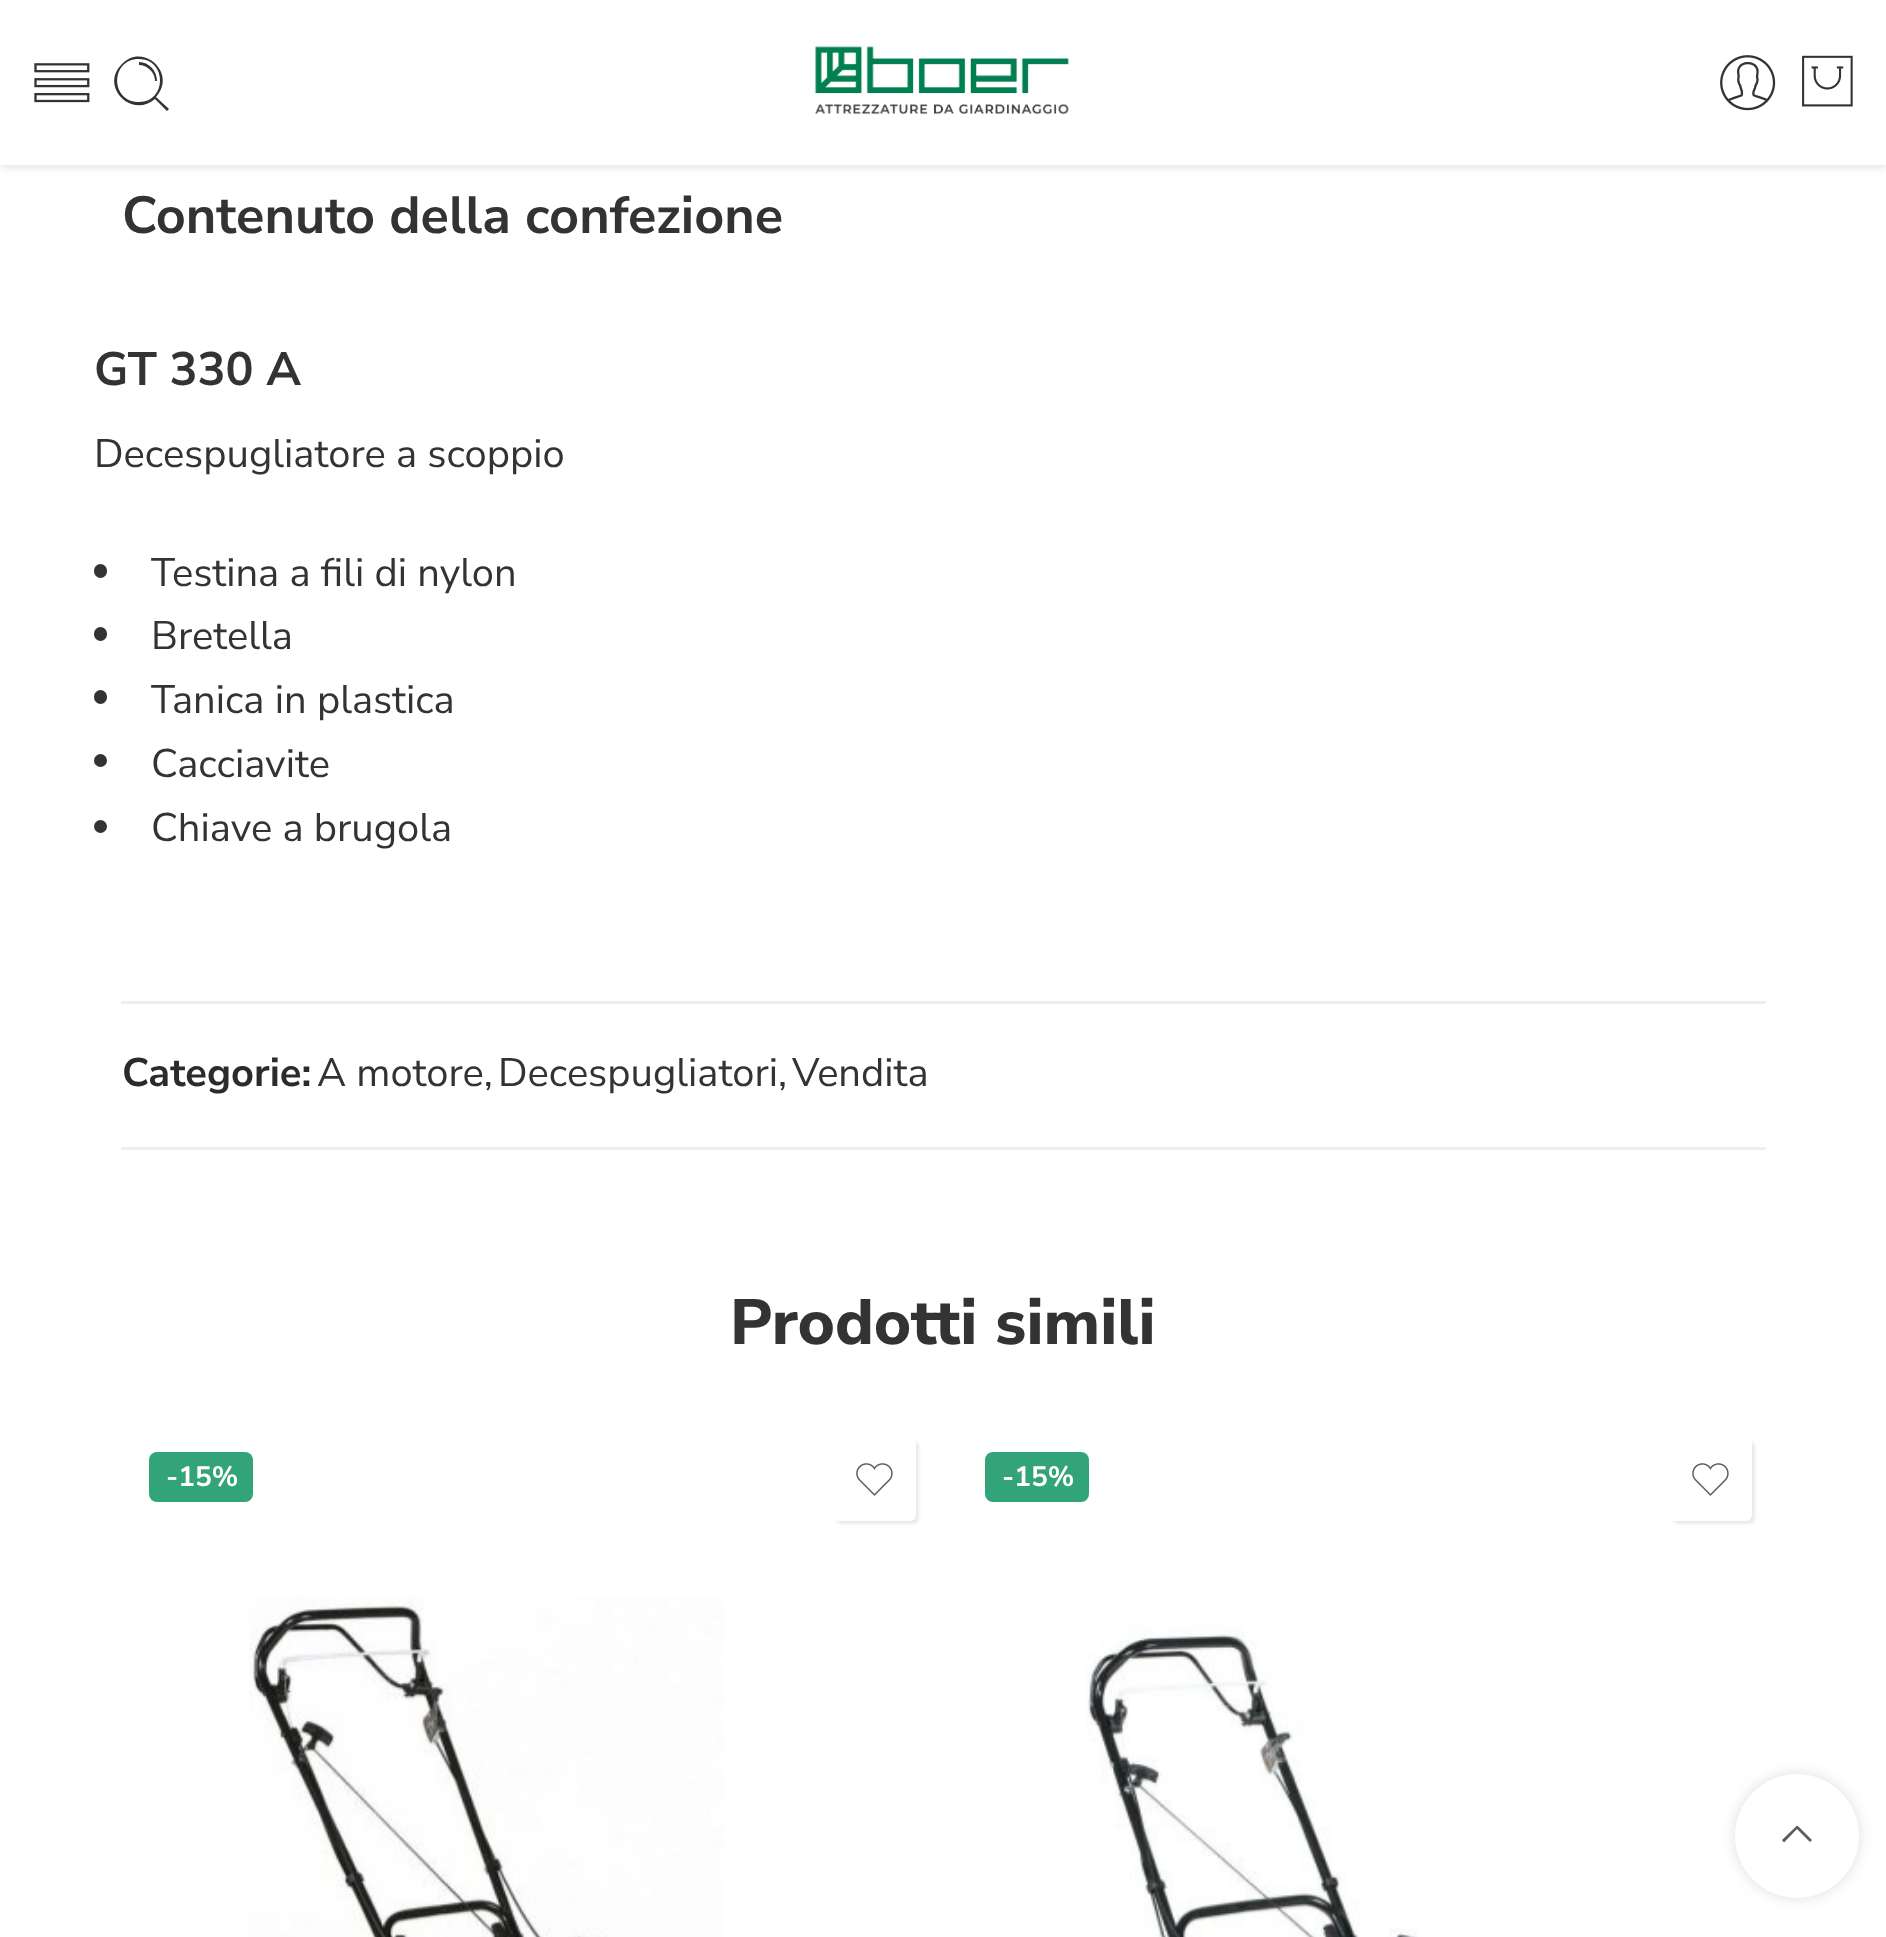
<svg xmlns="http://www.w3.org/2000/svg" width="1886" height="1937">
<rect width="100%" height="100%" fill="#fff"/>
<rect y="3" width="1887" height="165" fill="#0000001a" filter="blur(4px)"/>
<rect width="1886" height="165" fill="#fff"/>
<image x="34" y="63" width="56" height="40" href="media/1.png"/>
<path d="M169 109l-2 2l-12-12c-23 20-55-12-34-34c21-24 57 8 35 32zm-30-7c28 0 28-43 0-43c-29 0-29 43 0 43zm0-40c10 0 18 9 18 19h-2c0-9-8-16-16-16z" fill="#333"/>
<image x="814" y="46" width="255" height="69" href="media/2.png"/>
<image x="1720" y="55" width="56" height="56" href="media/3.png"/>
<image x="1802" y="55" width="51" height="52" href="media/4.png"/>
<text x="122" y="233" style="font-family:Nunito Sans;font-size:52.25px;font-weight:bold;fill:#333">Contenuto della confezione</text>
<text x="94" y="385" style="font-family:Nunito Sans;font-size:46.75px;font-weight:bold;fill:#333">GT 330 A</text>
<text x="94" y="467" style="font-family:Nunito Sans;font-size:39.9px;fill:#333">Decespugliatore a scoppio</text>
<rect x="94" y="564" width="13" height="14" rx="6.5" fill="#333"/>
<text x="151" y="586" style="font-family:Nunito Sans;font-size:39.9px;fill:#333">Testina a fili di nylon</text>
<rect x="94" y="627" width="13" height="14" rx="6.5" fill="#333"/>
<text x="151" y="649" style="font-family:Nunito Sans;font-size:39.9px;fill:#333">Bretella</text>
<rect x="94" y="690" width="13" height="14" rx="6.5" fill="#333"/>
<text x="151" y="713" style="font-family:Nunito Sans;font-size:39.9px;fill:#333">Tanica in plastica</text>
<circle cx="100.5" cy="760.5" r="6.5" fill="#333"/>
<text x="151" y="777" style="font-family:Nunito Sans;font-size:39.9px;fill:#333">Cacciavite</text>
<circle cx="100.5" cy="826.5" r="6.5" fill="#333"/>
<text x="151" y="841" style="font-family:Nunito Sans;font-size:39.9px;fill:#333">Chiave a brugola</text>
<rect x="121" y="1001" width="1645" height="3" fill="#efefef"/>
<rect x="121" y="1147" width="1645" height="3" fill="#efefef"/>
<text x="122" y="1086" style="font-family:Nunito Sans;font-size:39.9px;font-weight:bold;fill:#2d2a2a">Categorie:</text>
<text x="317" y="1086" style="font-family:Nunito Sans;font-size:39.9px;fill:#333">A motore,</text>
<text x="498" y="1086" style="font-family:Nunito Sans;font-size:39.9px;fill:#333">Decespugliatori,</text>
<text x="792" y="1086" style="font-family:Nunito Sans;font-size:39.9px;fill:#333">Vendita</text>
<text x="730" y="1344" style="font-family:Nunito Sans;font-size:63.75px;font-weight:800;fill:#333">Prodotti simili</text>
<rect x="149" y="1452" width="104" height="50" rx="8" fill="#33a479"/>
<text x="166" y="1486" style="font-family:Nunito Sans;font-size:28px;font-weight:bold;fill:#fff">-15%</text>
<rect x="836" y="1441" width="83" height="83" rx="6" fill="#3333331a" filter="blur(1.5px)"/>
<rect x="833" y="1438" width="83" height="83" rx="6" fill="#fff"/>
<image x="856" y="1463" width="37" height="33" href="media/5.png"/>
<image x="249" y="1597" width="475" height="340" href="media/6.png"/>
<rect x="985" y="1452" width="104" height="50" rx="8" fill="#33a479"/>
<text x="1002" y="1486" style="font-family:Nunito Sans;font-size:28px;font-weight:bold;fill:#fff">-15%</text>
<rect x="1672" y="1441" width="83" height="83" rx="6" fill="#3333331a" filter="blur(1.5px)"/>
<rect x="1669" y="1438" width="83" height="83" rx="6" fill="#fff"/>
<image x="1692" y="1463" width="37" height="33" href="media/5.png"/>
<image x="1086" y="1626" width="332" height="311" href="media/7.png"/>
<rect x="1735" y="1774" width="124" height="124" rx="62" fill="#3333332b" filter="blur(7px)"/>
<circle cx="1797" cy="1836" r="62" fill="#fff"/>
<path d="M1799 1827l-2-1.5l-15 14.5l2 2.5l13-13.5l13 13l2-2z" fill="#5c5c5c"/>
</svg>
